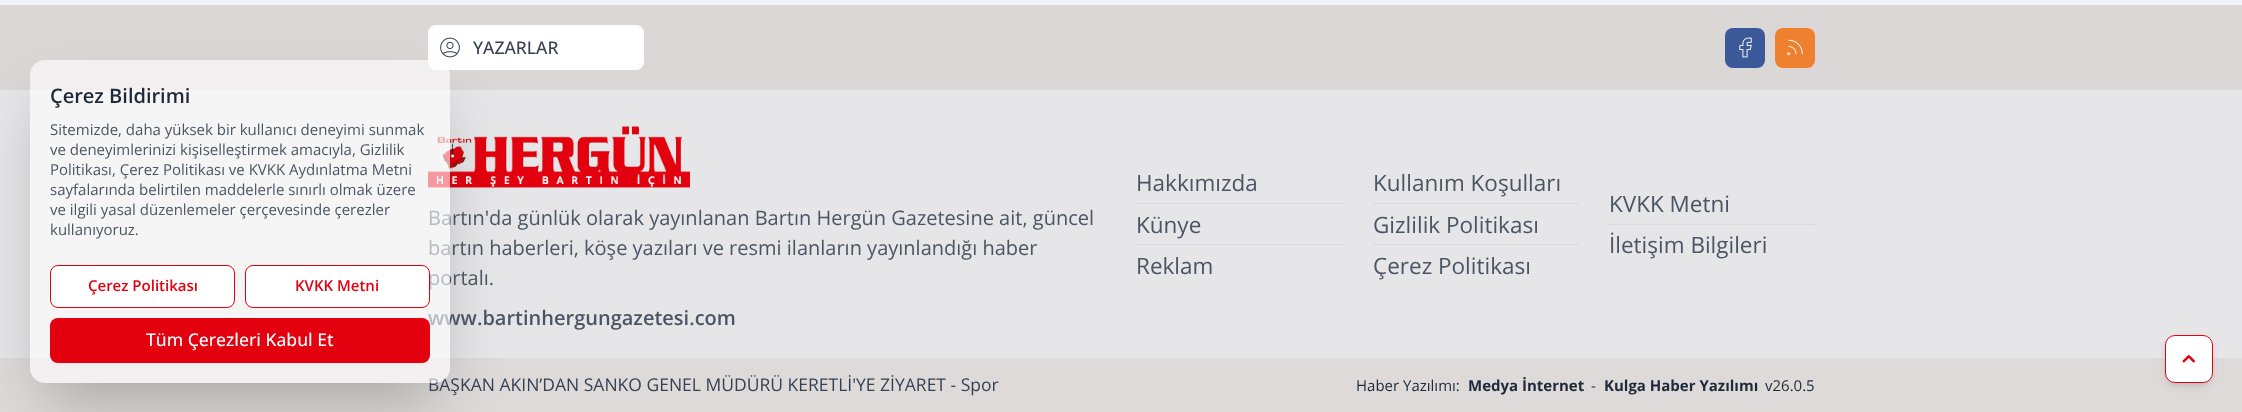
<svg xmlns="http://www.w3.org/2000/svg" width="2242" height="412">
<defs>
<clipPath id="clip1"><path d="M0 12h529v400h-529zm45 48h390c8.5 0 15 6.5 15 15v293c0 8.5-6.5 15-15 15h-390c-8.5 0-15-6.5-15-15v-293c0-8.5 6.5-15 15-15z" clip-rule="evenodd"/></clipPath>
</defs>
<rect width="100%" height="100%" fill="#f1f5f9"/>
<rect y="5" width="2242" height="85" fill="#dcd7d7"/>
<rect x="428" y="25" width="216" height="45" rx="8" fill="#fff"/>
<image x="440" y="37" width="20" height="21" href="media/1.png"/>
<rect y="90" width="2242" height="268" fill="#e6e6e8"/>
<image x="428" y="126" width="262" height="62" href="media/4.png"/>
<rect y="358" width="2242" height="54" fill="#dedada"/>
<g clip-path="url(#clip1)">
<rect x="45" y="106" width="390" height="293" fill="#00000040" filter="blur(31px)"/>
</g>
<text x="428" y="225" style="font-family:Open Sans;font-size:20px;fill:#4b5563">Bartın'da günlük olarak yayınlanan Bartın Hergün Gazetesine ait, güncel</text>
<text x="428" y="255" style="font-family:Open Sans;font-size:20px;fill:#4b5563">bartın haberleri, köşe yazıları ve resmi ilanların yayınlandığı haber</text>
<text x="428" y="285" style="font-family:Open Sans;font-size:20px;fill:#4b5563">portalı.</text>
<text x="428" y="325" style="font-family:Open Sans;font-size:20px;font-weight:600;fill:#4b5563">www.bartinhergungazetesi.com</text>
<text x="428" y="391" style="font-family:Open Sans;font-size:17.5px;fill:#374151">BAŞKAN AKIN’DAN SANKO GENEL MÜDÜRÜ KERETLİ'YE ZİYARET - Spor</text>
<rect x="30" y="60" width="420" height="323" rx="15" fill="#ffffff99"/>
<text x="50" y="103" style="font-family:Open Sans;font-size:20px;font-weight:600;fill:#1f2937">Çerez Bildirimi</text>
<text x="50" y="135" style="font-family:Open Sans;font-size:15px;fill:#4b5563">Sitemizde, daha yüksek bir kullanıcı deneyimi sunmak</text>
<text x="50" y="155" style="font-family:Open Sans;font-size:15px;fill:#4b5563">ve deneyimlerinizi kişiselleştirmek amacıyla, Gizlilik</text>
<text x="50" y="175" style="font-family:Open Sans;font-size:15px;fill:#4b5563">Politikası, Çerez Politikası ve KVKK Aydınlatma Metni</text>
<text x="50" y="195" style="font-family:Open Sans;font-size:15px;fill:#4b5563">sayfalarında belirtilen maddelerle sınırlı olmak üzere</text>
<text x="50" y="215" style="font-family:Open Sans;font-size:15px;fill:#4b5563">ve ilgili yasal düzenlemeler çerçevesinde çerezler</text>
<text x="50" y="235" style="font-family:Open Sans;font-size:15px;fill:#4b5563">kullanıyoruz.</text>
<rect x="50.5" y="265.5" width="184" height="42" rx="7.5" fill="#fff" stroke="#e3010f"/>
<text x="88" y="291" style="font-family:Open Sans;font-size:15px;font-weight:600;fill:#e3010f">Çerez Politikası</text>
<rect x="245.5" y="265.5" width="184" height="42" rx="7.5" fill="#fff" stroke="#e3010f"/>
<text x="295" y="291" style="font-family:Open Sans;font-size:15px;font-weight:600;fill:#e3010f">KVKK Metni</text>
<rect x="50" y="319" width="380" height="45" rx="8" fill="#0000000d" filter="blur(1px)"/>
<rect x="50" y="318" width="380" height="45" rx="8" fill="#e3010f"/>
<text x="146" y="346" style="font-family:Open Sans;font-size:17.5px;font-weight:500;fill:#fff">Tüm Çerezleri Kabul Et</text>
<text x="473" y="54" style="font-family:Open Sans;font-size:17.5px;font-weight:500;fill:#374151">YAZARLAR</text>
<rect x="1725" y="28" width="40" height="40" rx="8" fill="#3b5998"/>
<image x="1739" y="37" width="13" height="21" href="media/2.png"/>
<rect x="1775" y="28" width="40" height="40" rx="8" fill="#ee802f"/>
<image x="1787" y="39" width="16" height="17" href="media/3.png"/>
<text x="1136" y="191" style="font-family:Open Sans;font-size:22.5px;fill:#4b5563">Hakkımızda</text>
<rect x="1136" y="203" width="207" height="1" fill="#dadade"/>
<text x="1136" y="233" style="font-family:Open Sans;font-size:22.5px;fill:#4b5563">Künye</text>
<rect x="1136" y="244" width="207" height="1" fill="#dadade"/>
<text x="1136" y="274" style="font-family:Open Sans;font-size:22.5px;fill:#4b5563">Reklam</text>
<text x="1373" y="191" style="font-family:Open Sans;font-size:22.5px;fill:#4b5563">Kullanım Koşulları</text>
<rect x="1373" y="203" width="206" height="1" fill="#dadade"/>
<text x="1373" y="233" style="font-family:Open Sans;font-size:22.5px;fill:#4b5563">Gizlilik Politikası</text>
<rect x="1373" y="244" width="206" height="1" fill="#dadade"/>
<text x="1373" y="274" style="font-family:Open Sans;font-size:22.5px;fill:#4b5563">Çerez Politikası</text>
<text x="1609" y="212" style="font-family:Open Sans;font-size:22.5px;fill:#4b5563">KVKK Metni</text>
<rect x="1609" y="224" width="206" height="1" fill="#dadade"/>
<text x="1609" y="253" style="font-family:Open Sans;font-size:22.5px;fill:#4b5563">İletişim Bilgileri</text>
<text x="1356" y="391" style="font-family:Open Sans;font-size:15px;fill:#1f2937">Haber Yazılımı:</text>
<text x="1468" y="391" style="font-family:Open Sans;font-size:15px;font-weight:bold;fill:#1f2937">Medya İnternet</text>
<text x="1591" y="391" style="font-family:Open Sans;font-size:15px;fill:#1f2937">-</text>
<text x="1604" y="391" style="font-family:Open Sans;font-size:15px;font-weight:bold;fill:#1f2937">Kulga Haber Yazılımı</text>
<text x="1765" y="391" style="font-family:Open Sans;font-size:15px;fill:#1f2937">v26.0.5</text>
<rect x="2168" y="340" width="42" height="43" rx="8" fill="#0000001a" filter="blur(2.5px)"/>
<rect x="2166" y="341" width="45" height="45" rx="9" fill="#0000001a" filter="blur(4px)"/>
<rect x="2165.5" y="335.5" width="47" height="47" rx="9.5" fill="#fff" stroke="#e3010f"/>
<image x="2182" y="355" width="13" height="8" href="media/5.png"/>
</svg>
